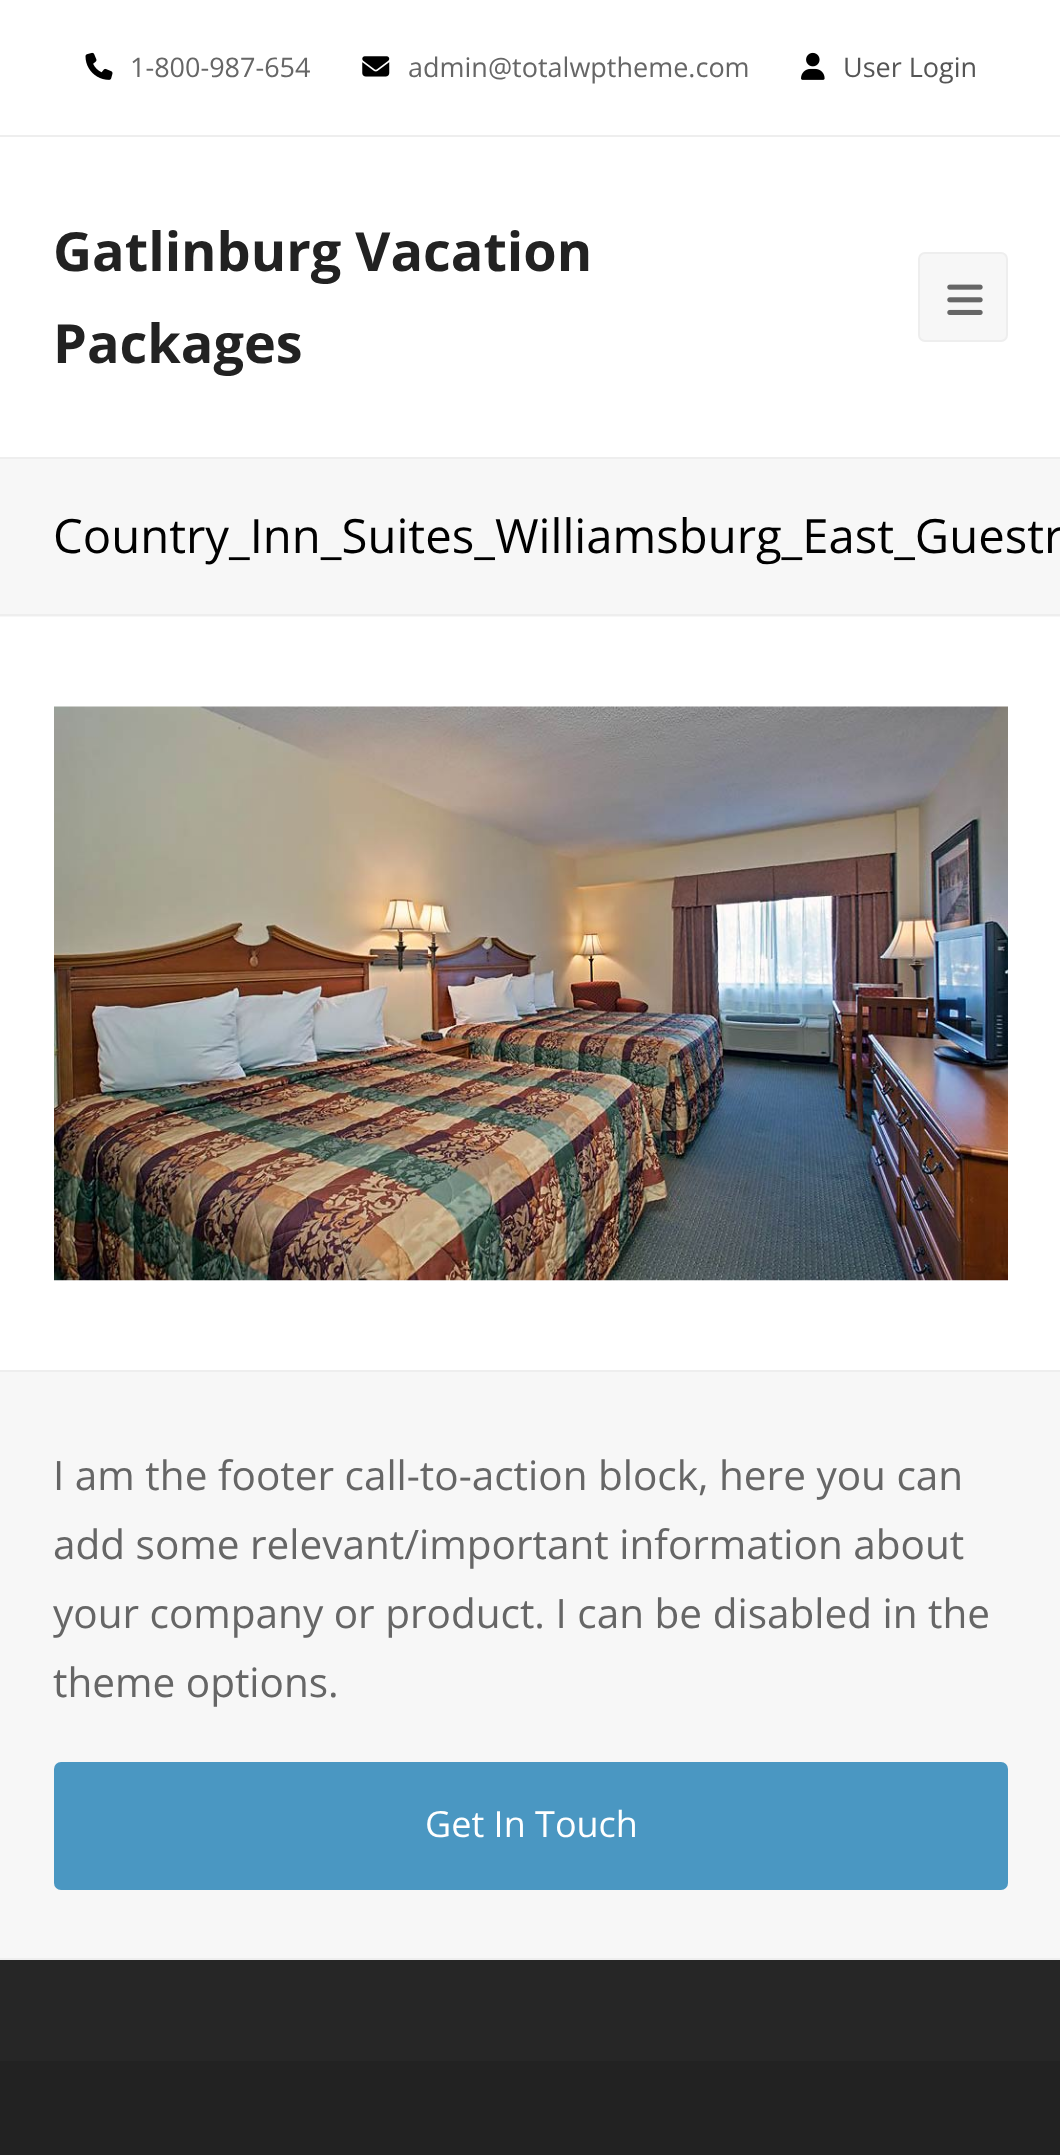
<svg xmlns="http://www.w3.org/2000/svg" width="1060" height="2155">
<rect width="100%" height="100%" fill="#fff"/>
<rect y="135" width="1060" height="2" fill="#eee"/>
<image x="85" y="52" width="28" height="28" href="media/1.png"/>
<text x="130" y="77" style="font-family:Open Sans;font-size:27px;fill:#666">1-800-987-654</text>
<image x="362" y="56" width="28" height="21" href="media/2.png"/>
<text x="408" y="77" style="font-family:Open Sans;font-size:27px;fill:#666">admin@totalwptheme.com</text>
<image x="801" y="52" width="24" height="28" href="media/3.png"/>
<text x="843" y="77" style="font-family:Open Sans;font-size:27px;fill:#555">User Login</text>
<text x="53" y="271" style="font-family:Open Sans;font-size:54px;font-weight:bold;fill:#222">Gatlinburg Vacation</text>
<text x="53" y="363" style="font-family:Open Sans;font-size:54px;font-weight:bold;fill:#222">Packages</text>
<rect x="919" y="253" width="88" height="88" rx="6" fill="#f7f7f7" stroke="#eee" stroke-width="2"/>
<image x="947" y="284" width="36" height="31" href="media/4.png"/>
<rect y="459" width="1060" height="158" fill="#f7f7f7"/>
<rect y="457" width="1060" height="2" fill="#eee"/>
<rect y="614" width="1060" height="2" fill="#eee"/>
<text x="53" y="553" style="font-family:Open Sans;font-size:47.25px;fill:#000">Country_Inn_Suites_Williamsburg_East_Guestr</text>
<image x="54" y="706" width="954" height="575" href="media/5.png"/>
<rect y="1372" width="1060" height="586" fill="#f7f7f7"/>
<rect y="1370" width="1060" height="2" fill="#eee"/>
<rect y="1958" width="1060" height="2" fill="#eee"/>
<text x="53" y="1490" style="font-family:Open Sans;font-size:40.5px;fill:#666">I am the footer call-to-action block, here you can</text>
<text x="53" y="1559" style="font-family:Open Sans;font-size:40.5px;fill:#666">add some relevant/important information about</text>
<text x="53" y="1628" style="font-family:Open Sans;font-size:40.5px;fill:#666">your company or product. I can be disabled in the</text>
<text x="53" y="1697" style="font-family:Open Sans;font-size:40.5px;fill:#666">theme options.</text>
<rect x="54" y="1762" width="954" height="128" rx="7" fill="#4a97c2"/>
<text x="425" y="1837" style="font-family:Open Sans;font-size:36px;fill:#fff">Get In Touch</text>
<rect y="1960" width="1060" height="101" fill="#262626"/>
<rect y="2061" width="1060" height="94" fill="#222"/>
</svg>
